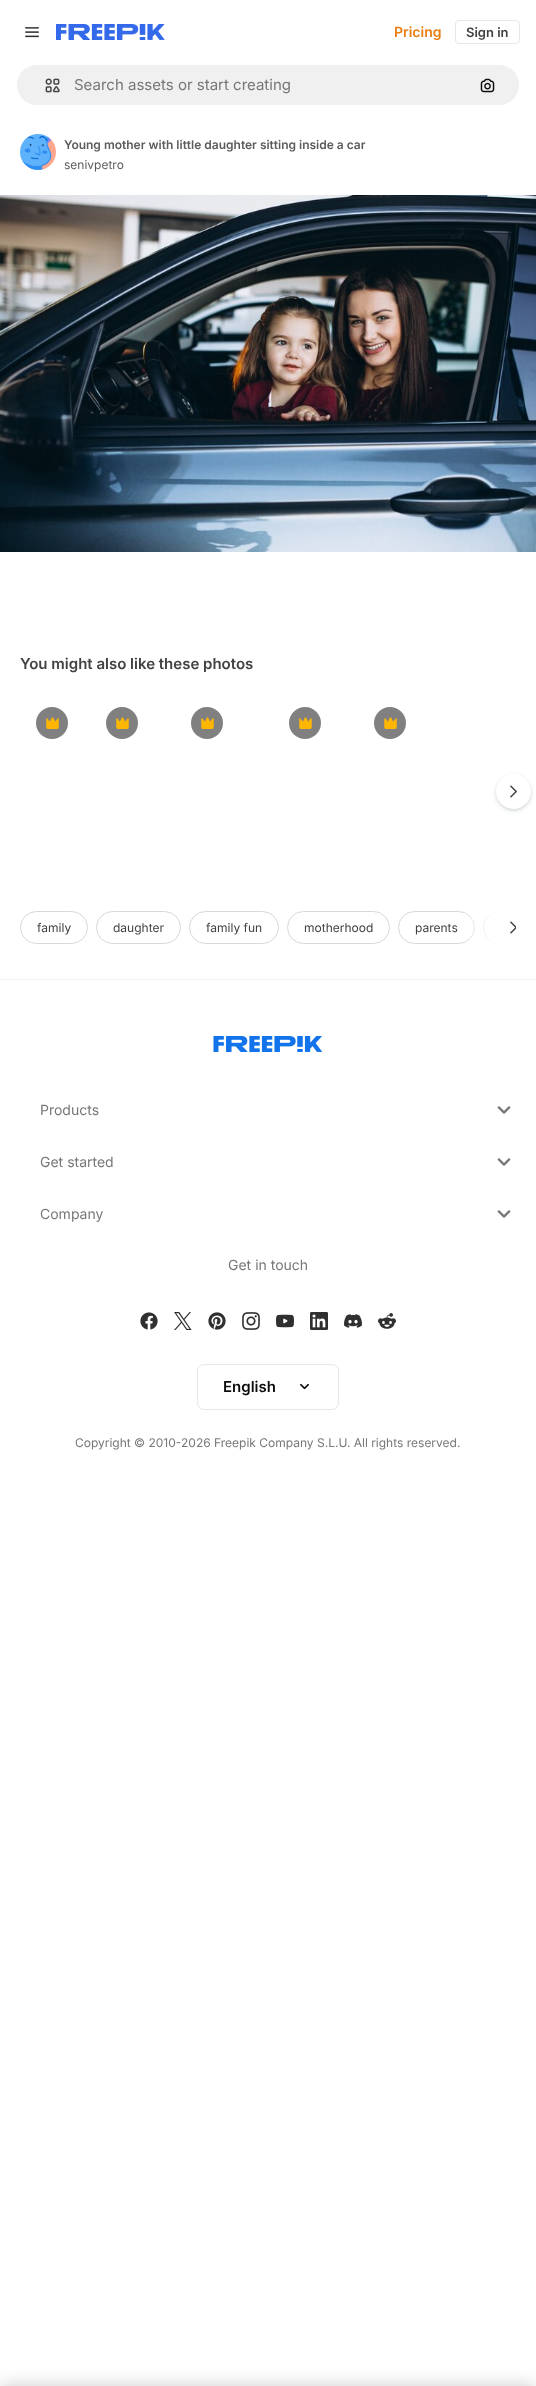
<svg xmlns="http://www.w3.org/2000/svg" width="536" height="2386">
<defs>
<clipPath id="clip1"><rect x="20" y="911" width="496" height="33"/></clipPath>
<linearGradient id="g1" gradientUnits="userSpaceOnUse" x1="496" y1="928" x2="461" y2="928"><stop offset="0" stop-color="#fff"/><stop offset="1" stop-color="#fff" stop-opacity="0"/></linearGradient>
</defs>
<rect width="100%" height="100%" fill="#fff"/>
<image x="25" y="27" width="14" height="11" href="media/1.png"/>
<image x="56" y="24" width="109" height="16" href="media/2.png"/>
<text x="394" y="37" style="font-family:Inter;font-size:14px;font-weight:600;fill:#ea7e11">Pricing</text>
<rect x="455.5" y="20.5" width="64" height="23" rx="3.5" fill="none" stroke="#e7e7e7"/>
<text x="466" y="37" style="font-family:Inter;font-size:13px;font-weight:600;fill:#424242">Sign in</text>
<rect x="16.5" y="64.5" width="503" height="41" rx="20.5" fill="#f0f0f0" stroke="#fff"/>
<image x="45" y="78" width="15" height="15" href="media/3.png"/>
<text x="74" y="90" style="font-family:Inter;font-size:15px;fill:#777">Search assets or start creating</text>
<image x="480" y="78" width="15" height="15" href="media/4.png"/>
<image x="20" y="134" width="36" height="36" href="media/5.png"/>
<text x="64" y="149" style="font-family:Inter;font-size:12px;font-weight:600;fill:#5c5c5c">Young mother with little daughter sitting inside a car</text>
<text x="64" y="169" style="font-family:Inter;font-size:12px;fill:#5c5c5c">senivpetro</text>
<image x="0" y="195" width="536" height="357" href="media/6.png"/>
<text x="20" y="669" style="font-family:Inter;font-size:15px;font-weight:600;fill:#424242">You might also like these photos</text>
<circle cx="52" cy="723" r="16" fill="#808080"/>
<image x="46" y="717" width="13" height="12" href="media/7.png"/>
<circle cx="122" cy="723" r="16" fill="#808080"/>
<image x="116" y="717" width="13" height="12" href="media/7.png"/>
<circle cx="207" cy="723" r="16" fill="#808080"/>
<image x="201" y="717" width="13" height="12" href="media/7.png"/>
<circle cx="305" cy="723" r="16" fill="#808080"/>
<image x="299" y="717" width="13" height="12" href="media/7.png"/>
<circle cx="390" cy="723" r="16" fill="#808080"/>
<image x="384" y="717" width="13" height="12" href="media/7.png"/>
<rect x="496" y="776" width="35" height="35" rx="17.5" fill="#37495726" filter="blur(2.5px)"/>
<rect x="496" y="775" width="35" height="35" rx="17.5" fill="#3749571a" filter="blur(1px)"/>
<circle cx="513.5" cy="791.5" r="17.5" fill="#fff"/>
<image x="510" y="785" width="7" height="13" href="media/8.png"/>
<rect x="20.5" y="911.5" width="67" height="32" rx="16" fill="none" stroke="#d8d8d8"/>
<text x="37" y="932" style="font-family:Inter;font-size:12px;fill:#424242">family</text>
<rect x="96.5" y="911.5" width="84" height="32" rx="16" fill="none" stroke="#d8d8d8"/>
<text x="113" y="932" style="font-family:Inter;font-size:12px;fill:#424242">daughter</text>
<rect x="189.5" y="911.5" width="89" height="32" rx="16" fill="none" stroke="#d8d8d8"/>
<text x="206" y="932" style="font-family:Inter;font-size:12px;fill:#424242">family fun</text>
<rect x="287.5" y="911.5" width="102" height="32" rx="16" fill="none" stroke="#d8d8d8"/>
<text x="304" y="932" style="font-family:Inter;font-size:12px;fill:#424242">motherhood</text>
<rect x="398.5" y="911.5" width="76" height="32" rx="16" fill="none" stroke="#d8d8d8"/>
<text x="415" y="932" style="font-family:Inter;font-size:12px;fill:#424242">parents</text>
<g clip-path="url(#clip1)">
<rect x="483.5" y="911.5" width="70" height="32" rx="16" fill="none" stroke="#d8d8d8"/>
</g>
<rect x="496" y="911" width="20" height="33" fill="#fff"/>
<rect x="464" y="911" width="32" height="33" fill="url(#g1)"/>
<image x="510" y="921" width="6" height="13" href="media/9.png"/>
<rect y="979" width="536" height="1" fill="#f0f0f0"/>
<image x="213" y="1036" width="109" height="16" href="media/10.png"/>
<text x="40" y="1115" style="font-family:Inter;font-size:14px;fill:#777">Products</text>
<image x="497" y="1106" width="14" height="8" href="media/11.png"/>
<text x="40" y="1167" style="font-family:Inter;font-size:14px;fill:#777">Get started</text>
<image x="497" y="1158" width="14" height="8" href="media/11.png"/>
<text x="40" y="1219" style="font-family:Inter;font-size:14px;fill:#777">Company</text>
<image x="497" y="1210" width="14" height="8" href="media/11.png"/>
<text x="228" y="1270" style="font-family:Inter;font-size:14px;fill:#777">Get in touch</text>
<image x="140" y="1312" width="18" height="18" href="media/12.png"/>
<image x="174" y="1312" width="18" height="18" href="media/13.png"/>
<image x="208" y="1312" width="18" height="18" href="media/14.png"/>
<image x="242" y="1312" width="18" height="18" href="media/15.png"/>
<image x="276" y="1314" width="18" height="14" href="media/16.png"/>
<image x="310" y="1312" width="18" height="18" href="media/17.png"/>
<image x="344" y="1314" width="18" height="14" href="media/18.png"/>
<image x="378" y="1313" width="18" height="16" href="media/19.png"/>
<rect x="197.5" y="1364.5" width="141" height="45" rx="6.5" fill="none" stroke="#e6e6e6"/>
<text x="223" y="1392" style="font-family:Inter;font-size:15px;font-weight:600;fill:#0d0d0d">English</text>
<image x="300" y="1383" width="9" height="7" href="media/20.png"/>
<text x="75" y="1447" style="font-family:Inter;font-size:12px;fill:#777">Copyright © 2010-</text>
<text x="181" y="1447" style="font-family:Inter;font-size:12px;fill:#777">2026 Freepik Company S.L.U. All rights reserved.</text>
<rect y="2386" width="536" height="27" fill="#00000033" filter="blur(9px)"/>
</svg>
